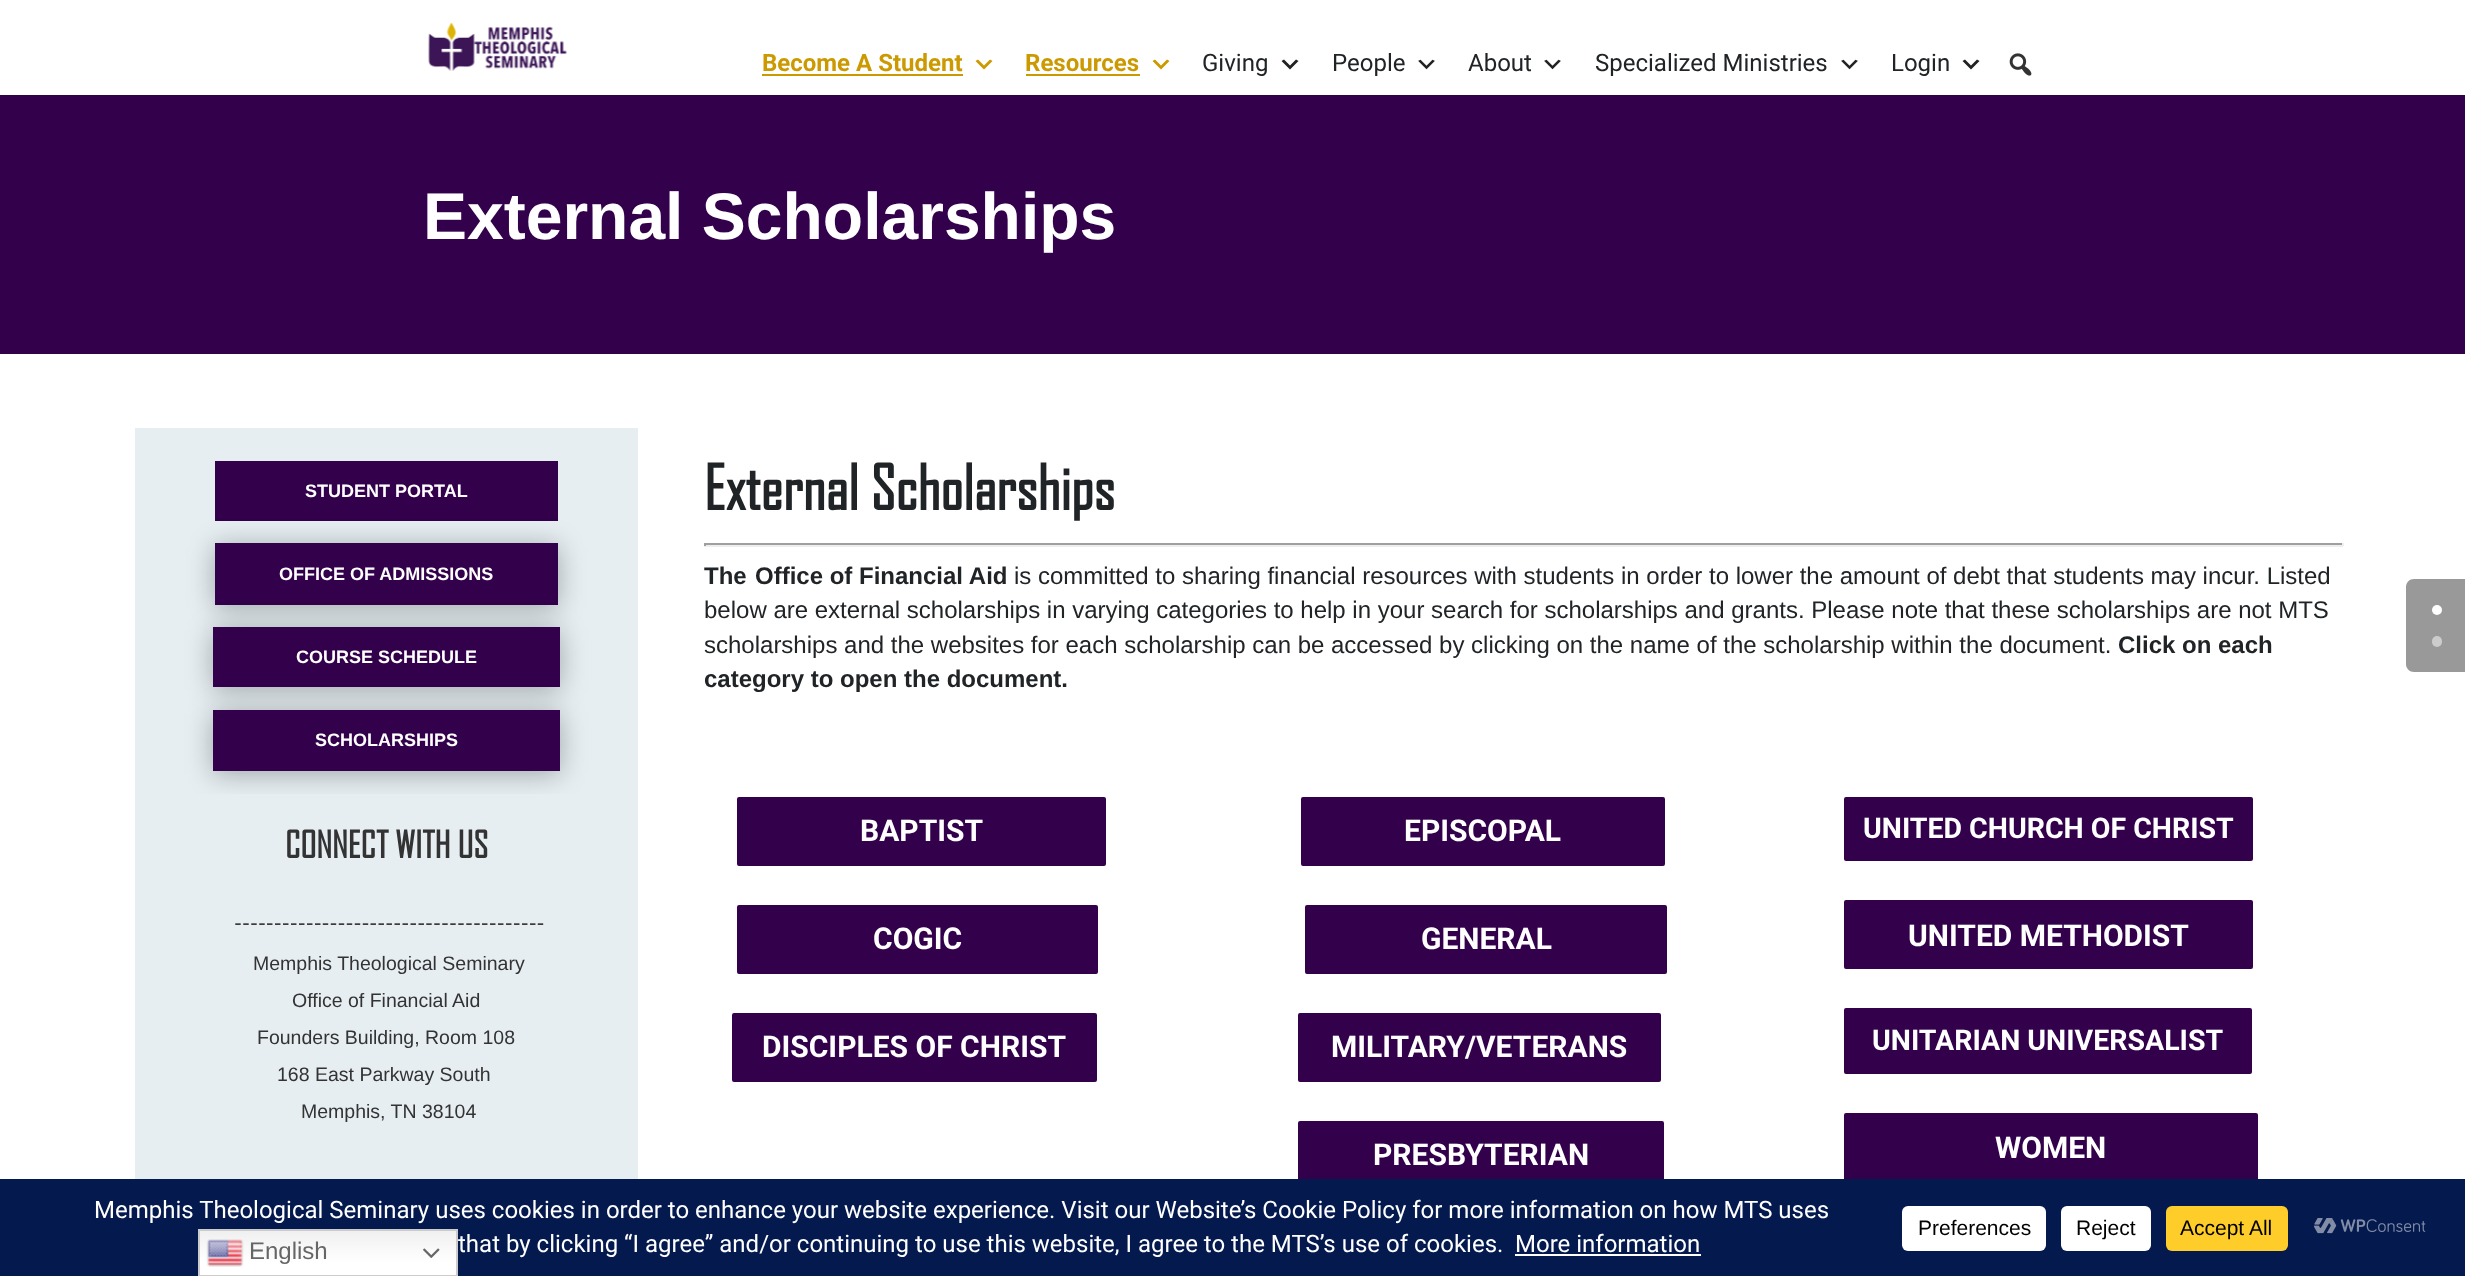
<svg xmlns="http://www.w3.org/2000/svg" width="2465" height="1276">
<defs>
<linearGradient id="g1" gradientUnits="userSpaceOnUse" x1="328" y1="1229" x2="328" y2="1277"><stop offset="0" stop-color="#efefef"/><stop offset="0.7" stop-color="#fff"/></linearGradient>
</defs>
<rect width="100%" height="100%" fill="#fff"/>
<rect y="95" width="2465" height="1" fill="#2e0044"/>
<image x="428" y="22" width="139" height="49" href="media/1.png"/>
<text x="762" y="71" style="font-family:Roboto;font-size:24px;font-weight:bold;fill:#c90">Become A Student</text>
<rect x="762" y="74" width="201" height="2" fill="#c90"/>
<path d="M978 59.5l6 6l6-6l2.5 1.5l-8.5 8.5l-8.5-8.5z" fill="#c90"/>
<text x="1025" y="71" style="font-family:Roboto;font-size:24px;font-weight:bold;fill:#c90">Resources</text>
<rect x="1026" y="74" width="114" height="2" fill="#c90"/>
<path d="M1155 59.5l6 6l6-6l2.5 1.5l-8.5 8.5l-8.5-8.5z" fill="#c90"/>
<text x="1202" y="71" style="font-family:Roboto;font-size:24px;fill:#212427">Giving</text>
<path d="M1284 59.5l6 6l6-6l2.5 1.5l-8.5 8.5l-8.5-8.5z" fill="#222"/>
<text x="1332" y="71" style="font-family:Roboto;font-size:24px;fill:#212427">People</text>
<image x="1418" y="59" width="17" height="11" href="media/2.png"/>
<text x="1468" y="71" style="font-family:Roboto;font-size:24px;fill:#212427">About</text>
<image x="1544" y="59" width="17" height="11" href="media/2.png"/>
<text x="1595" y="71" style="font-family:Roboto;font-size:24px;fill:#212427">Specialized Ministries</text>
<image x="1841" y="59" width="17" height="11" href="media/2.png"/>
<text x="1891" y="71" style="font-family:Roboto;font-size:24px;fill:#212427">Login</text>
<path d="M1965 59.5l6 6l6-6l2.5 1.5l-8.5 8.5l-8.5-8.5z" fill="#222"/>
<image x="2009" y="53" width="23" height="23" href="media/3.png"/>
<rect y="96" width="2465" height="258" fill="#33004b"/>
<text x="423" y="239" style="font-family:Liberation Sans;font-size:66px;font-weight:bold;fill:#fff">External Scholarships</text>
<rect x="135" y="428" width="503" height="366" fill="#e6eef2"/>
<rect x="215" y="461" width="343" height="60" fill="#33004b"/>
<text x="305" y="497" style="font-family:Liberation Sans;font-size:18px;font-weight:bold;fill:#fff">STUDENT PORTAL</text>
<rect x="215" y="546" width="343" height="62" fill="#0000004d" filter="blur(13.5px)"/>
<rect x="215" y="543" width="343" height="62" fill="#33004b"/>
<text x="279" y="580" style="font-family:Liberation Sans;font-size:18px;font-weight:bold;fill:#fff">OFFICE OF ADMISSIONS</text>
<rect x="213" y="630" width="347" height="60" fill="#0000004d" filter="blur(13.5px)"/>
<rect x="213" y="627" width="347" height="60" fill="#33004b"/>
<text x="296" y="663" style="font-family:Liberation Sans;font-size:18px;font-weight:bold;fill:#fff">COURSE SCHEDULE</text>
<rect x="213" y="713" width="347" height="61" fill="#0000004d" filter="blur(13.5px)"/>
<rect x="213" y="710" width="347" height="61" fill="#33004b"/>
<text x="315" y="746" style="font-family:Liberation Sans;font-size:18px;font-weight:bold;fill:#fff">SCHOLARSHIPS</text>
<text x="704" y="510" style="font-family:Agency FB;font-size:60px;font-weight:bold;fill:#212427">External Scholarships</text>
<rect x="704" y="543" width="1639" height="2" fill="#9f9f9f"/>
<rect x="2342" y="543" width="2" height="3" fill="#eee"/>
<rect x="704" y="545" width="1639" height="2" fill="#eee"/>
<rect x="704" y="543" width="2" height="3" fill="#9f9f9f"/>
<text x="704" y="584" style="font-family:Liberation Sans;font-size:24px;font-weight:bold;fill:#212427">The</text>
<text x="755" y="584" style="font-family:Liberation Sans;font-size:24px;font-weight:bold;fill:#212427">Office of Financial Aid</text>
<text x="1014" y="584" style="font-family:Liberation Sans;font-size:24px;fill:#212427">is committed to sharing financial resources with students in order to lower the amount of debt that students may incur. Listed</text>
<text x="704" y="618" style="font-family:Liberation Sans;font-size:24px;fill:#212427">below are external scholarships in varying categories to help in your search for scholarships and grants. Please note that these scholarships are not MTS</text>
<text x="704" y="653" style="font-family:Liberation Sans;font-size:24px;fill:#212427">scholarships and the websites for each scholarship can be accessed by clicking on the name of the scholarship within the document.</text>
<text x="2118" y="653" style="font-family:Liberation Sans;font-size:24px;font-weight:bold;fill:#212427">Click on each</text>
<text x="704" y="687" style="font-family:Liberation Sans;font-size:24px;font-weight:bold;fill:#212427">category to open the document.</text>
<rect x="135" y="794" width="503" height="385" fill="#e6eef2"/>
<text x="285" y="858" style="font-family:Agency FB;font-size:36px;font-weight:bold;fill:#333">CONNECT WITH US</text>
<text x="234" y="932" style="font-family:Agency FB;font-size:27px;fill:#333">---------------------------------------</text>
<text x="253" y="970" style="font-family:Liberation Sans;font-size:19.5px;fill:#333">Memphis Theological Seminary</text>
<text x="292" y="1007" style="font-family:Liberation Sans;font-size:19.5px;fill:#333">Office of Financial Aid</text>
<text x="257" y="1044" style="font-family:Liberation Sans;font-size:19.5px;fill:#333">Founders Building, Room 108</text>
<text x="277" y="1081" style="font-family:Liberation Sans;font-size:19.5px;fill:#333">168 East Parkway South</text>
<text x="301" y="1118" style="font-family:Liberation Sans;font-size:19.5px;fill:#333">Memphis, TN 38104</text>
<rect x="735.5" y="795.5" width="372" height="72" rx="3.5" fill="#33004b" stroke="#fff" stroke-width="3"/>
<text x="860" y="841" style="font-family:Roboto;font-size:30px;font-weight:bold;fill:#fff">BAPTIST</text>
<rect x="735.5" y="903.5" width="364" height="72" rx="3.5" fill="#33004b" stroke="#fff" stroke-width="3"/>
<text x="873" y="949" style="font-family:Roboto;font-size:30px;font-weight:bold;fill:#fff">COGIC</text>
<rect x="730.5" y="1011.5" width="368" height="72" rx="3.5" fill="#33004b" stroke="#fff" stroke-width="3"/>
<text x="762" y="1057" style="font-family:Roboto;font-size:30px;font-weight:bold;fill:#fff">DISCIPLES OF CHRIST</text>
<rect x="1299.5" y="795.5" width="367" height="72" rx="3.5" fill="#33004b" stroke="#fff" stroke-width="3"/>
<text x="1404" y="841" style="font-family:Roboto;font-size:30px;font-weight:bold;fill:#fff">EPISCOPAL</text>
<rect x="1303.5" y="903.5" width="365" height="72" rx="3.5" fill="#33004b" stroke="#fff" stroke-width="3"/>
<text x="1421" y="949" style="font-family:Roboto;font-size:30px;font-weight:bold;fill:#fff">GENERAL</text>
<rect x="1296.5" y="1011.5" width="366" height="72" rx="3.5" fill="#33004b" stroke="#fff" stroke-width="3"/>
<text x="1331" y="1057" style="font-family:Roboto;font-size:30px;font-weight:bold;fill:#fff">MILITARY/VETERANS</text>
<rect x="1296.5" y="1119.5" width="369" height="72" rx="3.5" fill="#33004b" stroke="#fff" stroke-width="3"/>
<text x="1373" y="1165" style="font-family:Roboto;font-size:30px;font-weight:bold;fill:#fff">PRESBYTERIAN</text>
<rect x="1842.5" y="795.5" width="412" height="67" rx="3.5" fill="#33004b" stroke="#fff" stroke-width="3"/>
<text x="1863" y="838" style="font-family:Roboto;font-size:28.5px;font-weight:bold;fill:#fff">UNITED CHURCH OF CHRIST</text>
<rect x="1842.5" y="898.5" width="412" height="72" rx="3.5" fill="#33004b" stroke="#fff" stroke-width="3"/>
<text x="1908" y="946" style="font-family:Roboto;font-size:30px;font-weight:bold;fill:#fff">UNITED METHODIST</text>
<rect x="1842.5" y="1006.5" width="411" height="69" rx="3.5" fill="#33004b" stroke="#fff" stroke-width="3"/>
<text x="1872" y="1050" style="font-family:Roboto;font-size:28.5px;font-weight:bold;fill:#fff">UNITARIAN UNIVERSALIST</text>
<rect x="1842.5" y="1111.5" width="417" height="72" rx="3.5" fill="#33004b" stroke="#fff" stroke-width="3"/>
<text x="1995" y="1158" style="font-family:Roboto;font-size:30px;font-weight:bold;fill:#fff">WOMEN</text>
<path d="M2414 579h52v93h-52c-4.5 0-8-3.5-8-8v-77c0-4.5 3.5-8 8-8z" fill="#999"/>
<circle cx="2437" cy="610" r="5" fill="#fff"/>
<rect x="2432" y="636" width="10" height="11" rx="5" fill="#ccc"/>
<rect y="1179" width="2465" height="97" fill="#04194e"/>
<text x="94" y="1218" style="font-family:Roboto;font-size:24px;fill:#fff">Memphis Theological Seminary uses cookies in order to enhance your website experience. Visit our Website’s Cookie Policy for more information on how MTS uses</text>
<text x="458" y="1252" style="font-family:Roboto;font-size:24px;fill:#fff">that by clicking “I agree” and/or continuing to use this website, I agree to the MTS’s use of cookies.</text>
<text x="1515" y="1252" style="font-family:Roboto;font-size:24px;fill:#fff">More information</text>
<rect x="1515" y="1254" width="186" height="2" fill="#fff"/>
<rect x="1902" y="1206" width="144" height="45" rx="6" fill="#fff"/>
<text x="1918" y="1235" style="font-family:Liberation Sans;font-size:21px;fill:#000">Preferences</text>
<rect x="2061" y="1206" width="90" height="45" rx="6" fill="#fff"/>
<text x="2076" y="1235" style="font-family:Liberation Sans;font-size:21px;fill:#000">Reject</text>
<rect x="2166" y="1206" width="122" height="45" rx="6" fill="#ffcd2a"/>
<text x="2180" y="1235" style="font-family:Liberation Sans;font-size:21px;fill:#000">Accept All</text>
<image x="2314" y="1218" width="112" height="16" href="media/4.png"/>
<rect x="200" y="1231" width="256" height="44" fill="url(#g1)"/>
<rect x="199" y="1230" width="258" height="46" fill="none" stroke="#ccc" stroke-width="2"/>
<image x="206" y="1239" width="38" height="28" href="media/5.png"/>
<text x="249" y="1259" style="font-family:Liberation Sans;font-size:24px;fill:#666">English</text>
<image x="423" y="1248" width="17" height="10" href="media/6.png"/>
</svg>
